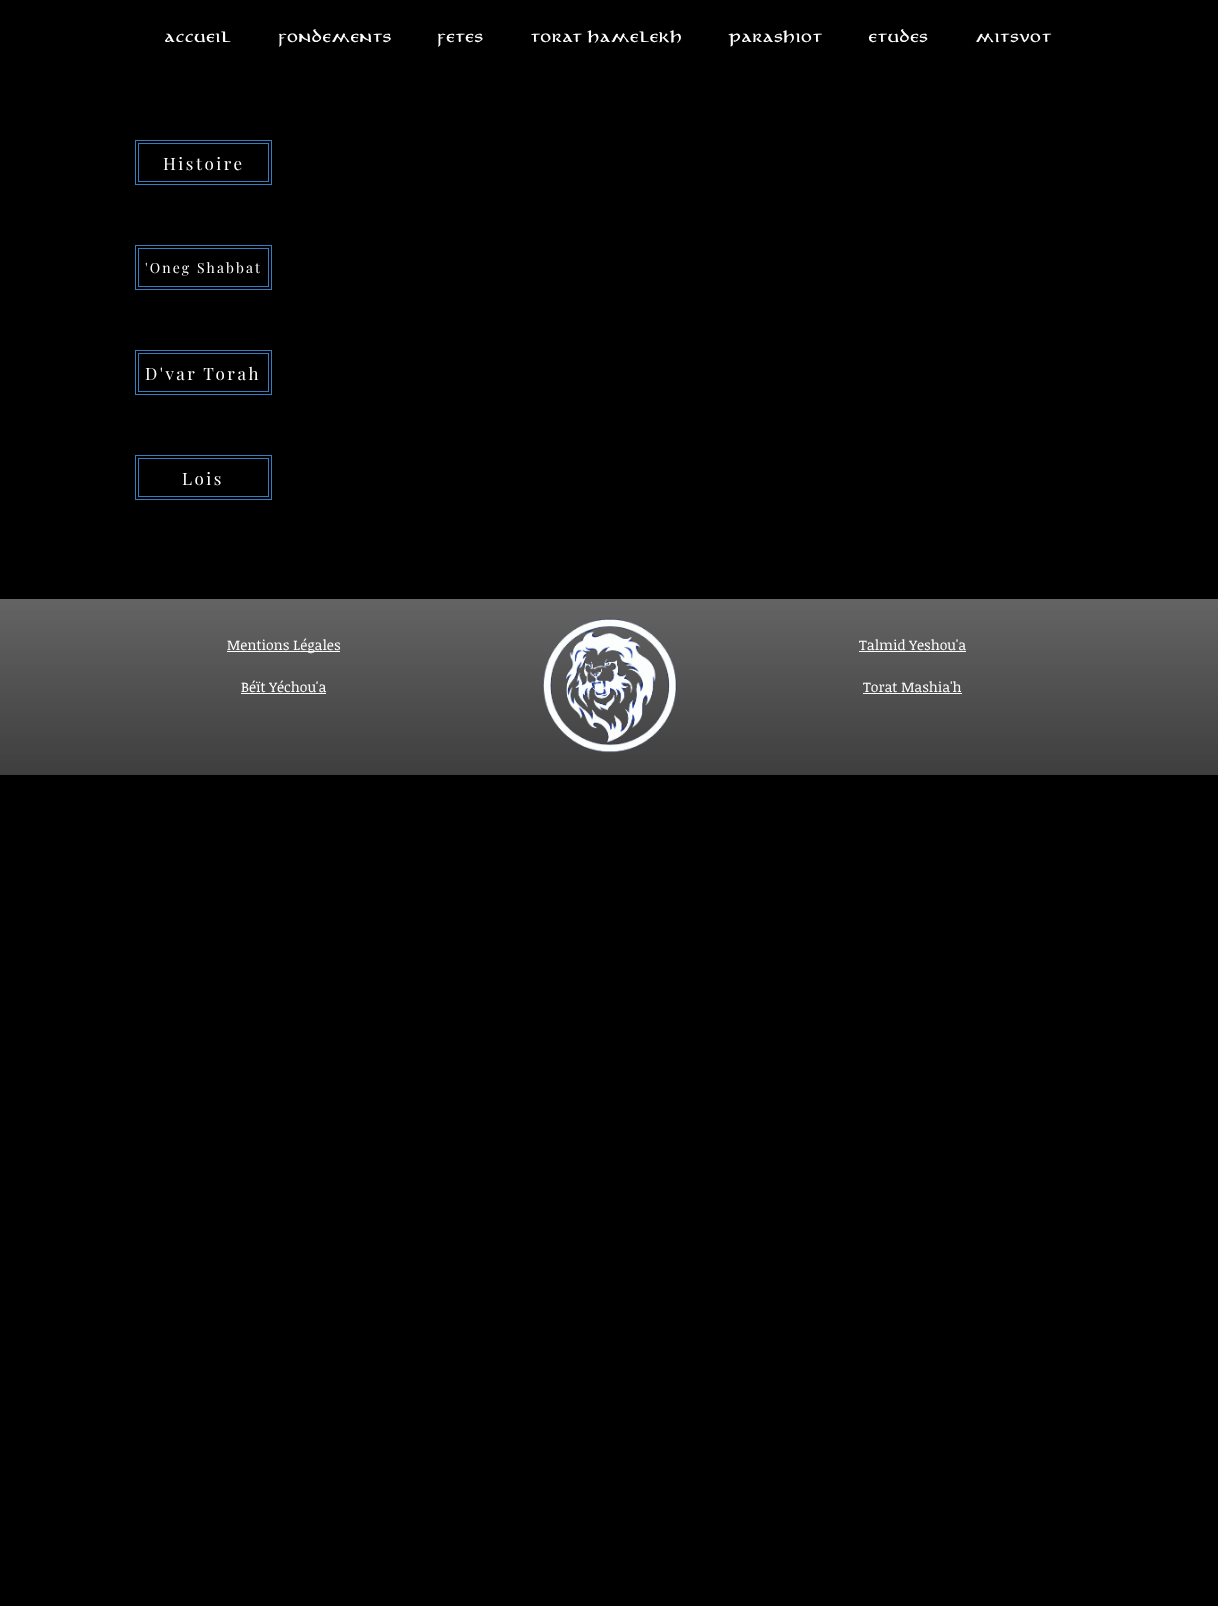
<svg xmlns="http://www.w3.org/2000/svg" width="1218" height="1606">
<rect width="100%" height="100%" fill="#000"/>
<text x="165" y="42" style="font-family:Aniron;font-size:9px;font-weight:bold;letter-spacing:0.5px;fill:#fff">ACCUEIL</text>
<text x="279" y="42" style="font-family:Aniron;font-size:9px;font-weight:bold;letter-spacing:0.5px;fill:#fff">FONDEMENTS</text>
<text x="438" y="42" style="font-family:Aniron;font-size:9px;font-weight:bold;letter-spacing:0.5px;fill:#fff">FETES</text>
<text x="531" y="42" style="font-family:Aniron;font-size:9px;font-weight:bold;letter-spacing:0.5px;fill:#fff">TORAT HAMELEKH</text>
<text x="729" y="42" style="font-family:Aniron;font-size:9px;font-weight:bold;letter-spacing:0.5px;fill:#fff">PARASHIOT</text>
<text x="869" y="42" style="font-family:Aniron;font-size:9px;font-weight:bold;letter-spacing:0.5px;fill:#fff">ETUDES</text>
<text x="976" y="42" style="font-family:Aniron;font-size:9px;font-weight:bold;letter-spacing:0.5px;fill:#fff">MITSVOT</text>
<rect x="135.5" y="140.5" width="136" height="44" fill="none" stroke="#377dbd"/>
<rect x="138.5" y="143.5" width="130" height="38" fill="none" stroke="#377dbd"/>
<text x="163" y="170" style="font-family:Playfair Display;font-size:17px;letter-spacing:2.5px;fill:#fff">Histoire</text>
<rect x="135.5" y="245.5" width="136" height="44" fill="none" stroke="#377dbd"/>
<rect x="138.5" y="248.5" width="130" height="38" fill="none" stroke="#377dbd"/>
<text x="145" y="273" style="font-family:Playfair Display;font-size:14px;letter-spacing:2.1px;fill:#fff">'Oneg Shabbat</text>
<rect x="135.5" y="350.5" width="136" height="44" fill="none" stroke="#377dbd"/>
<rect x="138.5" y="353.5" width="130" height="38" fill="none" stroke="#377dbd"/>
<text x="145" y="380" style="font-family:Playfair Display;font-size:17px;letter-spacing:2.5px;fill:#fff">D'var Torah</text>
<rect x="135.5" y="455.5" width="136" height="44" fill="none" stroke="#377dbd"/>
<rect x="138.5" y="458.5" width="130" height="38" fill="none" stroke="#377dbd"/>
<text x="182" y="485" style="font-family:Playfair Display;font-size:17px;letter-spacing:2.5px;fill:#fff">Lois</text>
<rect y="599" width="1218" height="176" fill="#2f2e2e"/>
<image x="0" y="599" width="1218" height="176" href="media/1.png"/>
<rect x="227" y="651" width="113" height="1" fill="#fffffe"/>
<text x="227" y="650" style="font-family:Noticia Text;font-size:14px;fill:#fff">Mentions Légales</text>
<image x="543" y="618" width="134" height="135" href="media/2.png"/>
<text x="859" y="650" style="font-family:Noticia Text;font-size:14px;fill:#fff">Talmid Yeshou'a</text>
<rect x="859" y="651" width="107" height="1" fill="#fffffe"/>
<text x="241" y="692" style="font-family:Noticia Text;font-size:14px;fill:#fff">Béït Yéchou'a</text>
<rect x="241" y="693" width="85" height="1" fill="#fffffe"/>
<text x="863" y="692" style="font-family:Noticia Text;font-size:14px;fill:#fff">Torat Mashia'h</text>
<rect x="863" y="693" width="99" height="1" fill="#fff"/>
</svg>
